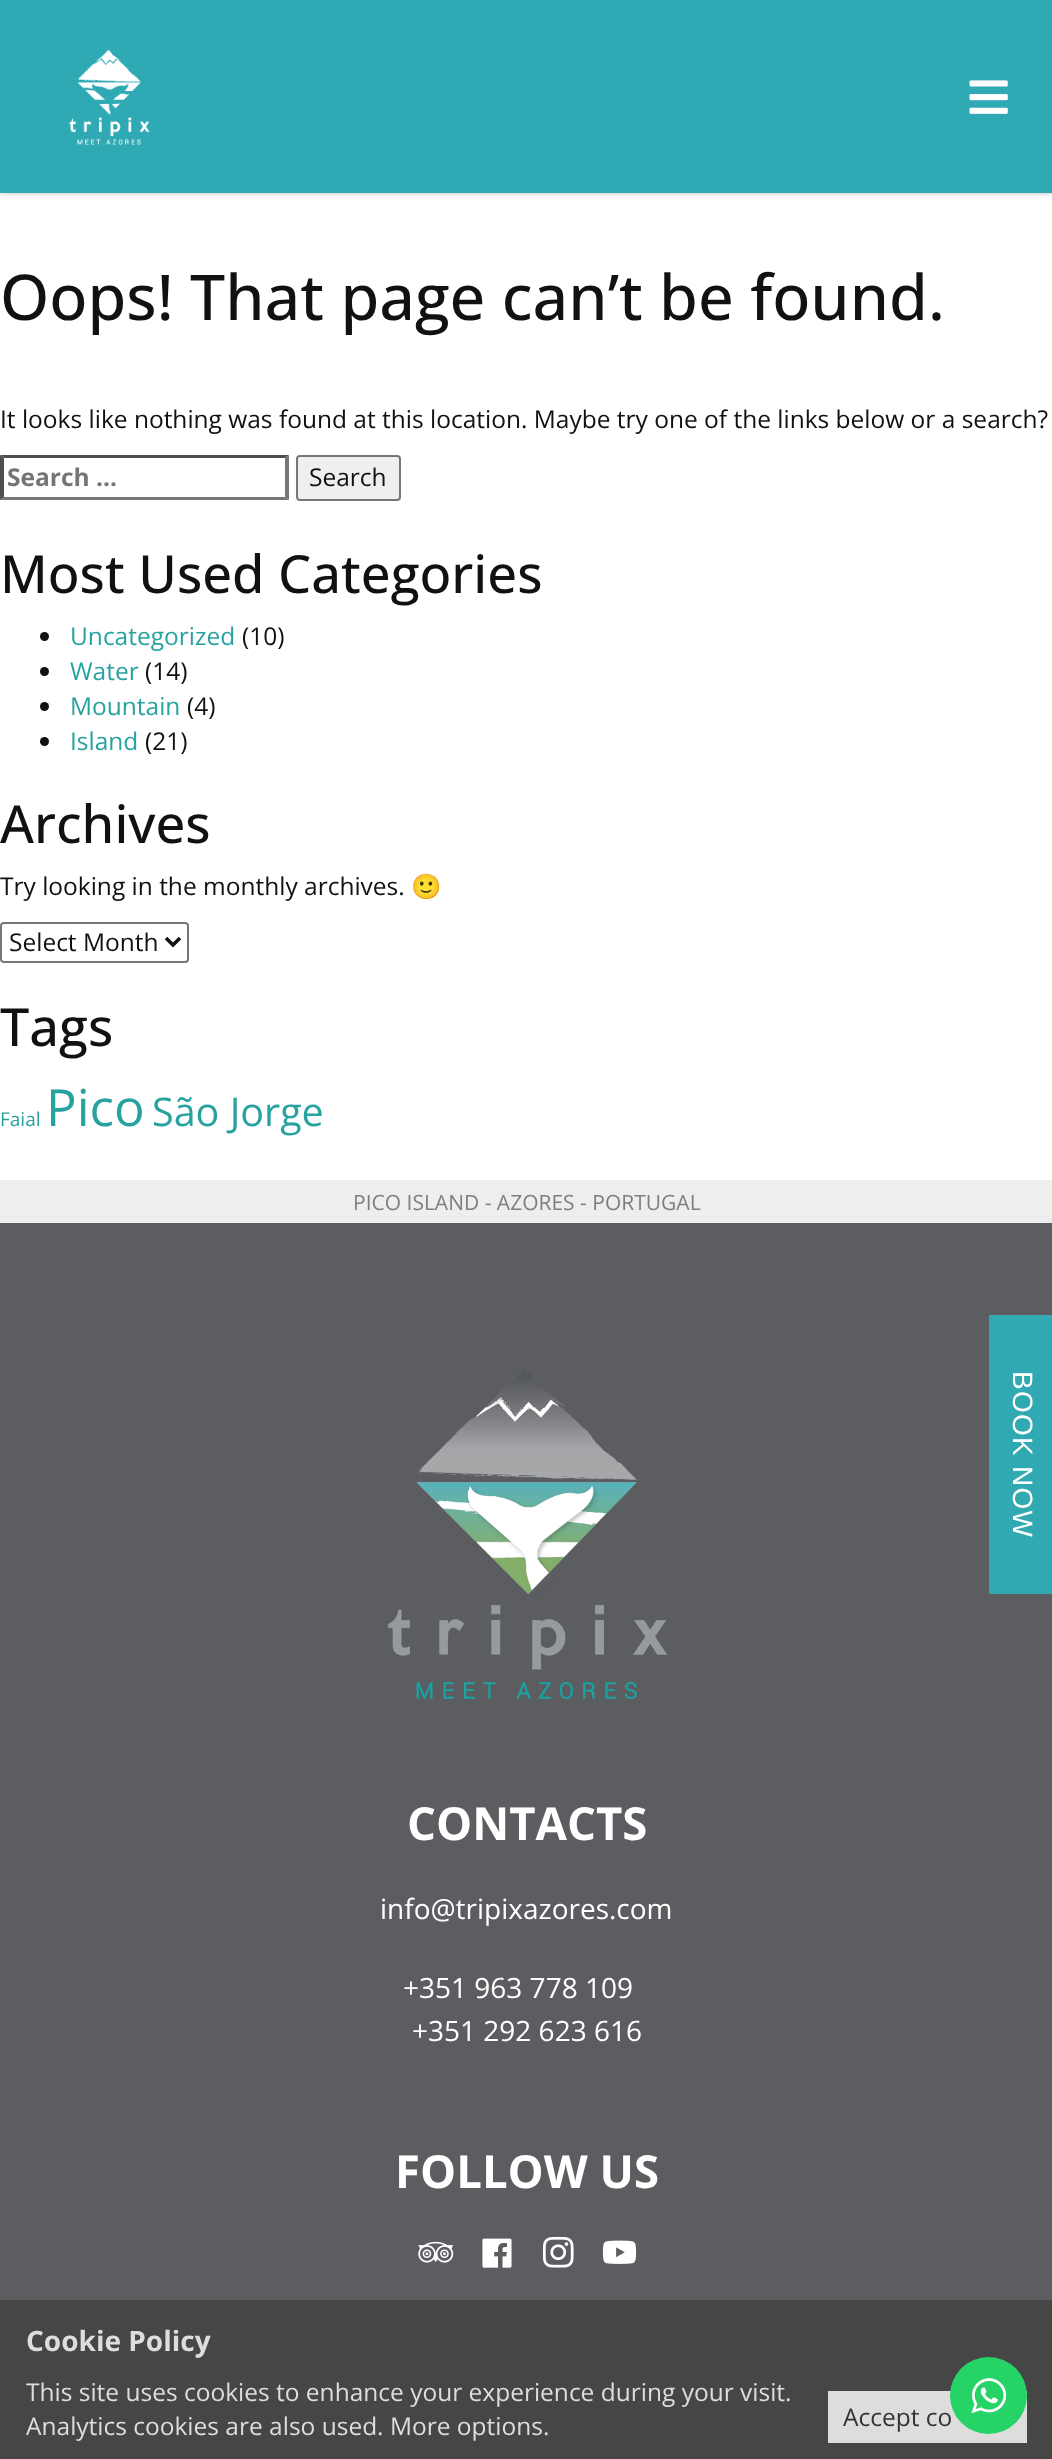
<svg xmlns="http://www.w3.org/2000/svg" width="1052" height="2459">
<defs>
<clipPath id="clip1"><path d="M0 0h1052v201h-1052zm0 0h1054v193h-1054z" clip-rule="evenodd"/></clipPath>
</defs>
<rect width="100%" height="100%" fill="#fff"/>
<rect width="1052" height="193" fill="#2fa9b3"/>
<g clip-path="url(#clip1)">
<rect y="2" width="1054" height="192" fill="#00000033" filter="blur(2px)"/>
</g>
<image x="68" y="49" width="82" height="96" href="media/1.png"/>
<image x="969" y="80" width="39" height="34" href="media/2.png"/>
<text x="0" y="320" style="font-family:Open Sans;font-size:63px;font-weight:500;fill:#111">Oops! That page can’t be found.</text>
<text x="0" y="428" style="font-family:Open Sans;font-size:24.5px;fill:#111">It looks like nothing was found at this location. Maybe try one of the links below or a search?</text>
<path d="M0 455h289l-4 3h-281z" fill="#4f4f4f"/>
<path d="M289 455v45l-4-3v-39z" fill="#767676"/>
<path d="M289 500h-289l4-3h281z" fill="#767676"/>
<path d="M0 500v-45l4 3v39z" fill="#4f4f4f"/>
<text x="7" y="486" style="font-family:Open Sans;font-size:24.5px;font-weight:bold;fill:#757575">Search …</text>
<rect x="297" y="456" width="103" height="44" rx="3" fill="#efefef" stroke="#767676" stroke-width="2"/>
<text x="309" y="486" style="font-family:Open Sans;font-size:24.5px;fill:#111">Search</text>
<text x="0" y="593" style="font-family:Open Sans;font-size:52.5px;font-weight:500;fill:#111">Most Used Categories</text>
<circle cx="44.5" cy="636.5" r="4.5" fill="#111"/>
<text x="70" y="645" style="font-family:Open Sans;font-size:24.5px;fill:#26a29f">Uncategorized</text>
<text x="242" y="645" style="font-family:Open Sans;font-size:24.5px;fill:#111">(10)</text>
<circle cx="44.5" cy="671.5" r="4.5" fill="#111"/>
<text x="70" y="680" style="font-family:Open Sans;font-size:24.5px;fill:#26a29f">Water</text>
<text x="145" y="680" style="font-family:Open Sans;font-size:24.5px;fill:#111">(14)</text>
<circle cx="44.5" cy="706.5" r="4.5" fill="#111"/>
<text x="70" y="715" style="font-family:Open Sans;font-size:24.5px;fill:#26a29f">Mountain</text>
<text x="187" y="715" style="font-family:Open Sans;font-size:24.5px;fill:#111">(4)</text>
<circle cx="44.5" cy="741.5" r="4.5" fill="#111"/>
<text x="70" y="750" style="font-family:Open Sans;font-size:24.5px;fill:#26a29f">Island</text>
<text x="145" y="750" style="font-family:Open Sans;font-size:24.5px;fill:#111">(21)</text>
<text x="0" y="843" style="font-family:Open Sans;font-size:52.5px;font-weight:500;fill:#111">Archives</text>
<text x="0" y="895" style="font-family:Open Sans;font-size:24.5px;fill:#111">Try looking in the monthly archives.</text>
<text x="411" y="895" style="font-family:Noto Color Emoji;font-size:24.5px;fill:#111">🙂</text>
<rect x="1" y="923" width="187" height="39" rx="3" fill="none" stroke="#767676" stroke-width="2"/>
<path d="M166 938l7 7l7-7" fill="none" stroke="#111" stroke-width="3.5"/>
<text x="9" y="951" style="font-family:Open Sans;font-size:24.5px;fill:#111">Select Month</text>
<text x="0" y="1046" style="font-family:Open Sans;font-size:52.5px;font-weight:500;fill:#111">Tags</text>
<text x="0" y="1126" style="font-family:Open Sans;font-size:19px;fill:#26a29f">Faial</text>
<text x="46" y="1126" style="font-family:Open Sans;font-size:51px;fill:#26a29f">Pico</text>
<text x="152" y="1126" style="font-family:Open Sans;font-size:39.5px;fill:#26a29f">São Jorge</text>
<rect y="1180" width="1052" height="43" fill="#eee"/>
<text x="353" y="1210" style="font-family:Open Sans;font-size:21px;fill:#7f7f7f">PICO ISLAND - AZORES - PORTUGAL</text>
<rect y="1223" width="1052" height="1077" fill="#5b5d60"/>
<image x="387" y="1369" width="281" height="330" href="media/3.png"/>
<text x="407" y="1840" style="font-family:Open Sans;font-size:45.5px;font-weight:bold;fill:#fff">CONTACTS</text>
<text x="380" y="1919" style="font-family:Open Sans;font-size:28px;fill:#fff">info@tripixazores.com</text>
<text x="403" y="1998" style="font-family:Open Sans;font-size:28px;fill:#fff">+351 963 778 109</text>
<text x="412" y="2041" style="font-family:Open Sans;font-size:28px;fill:#fff">+351 292 623 616</text>
<text x="395" y="2188" style="font-family:Open Sans;font-size:45.5px;font-weight:bold;fill:#fff">FOLLOW US</text>
<image x="418" y="2241" width="36" height="22" href="media/4.png"/>
<image x="482" y="2238" width="30" height="30" href="media/5.png"/>
<image x="542" y="2236" width="32" height="32" href="media/6.png"/>
<image x="602" y="2240" width="35" height="24" href="media/7.png"/>
<rect x="989" y="1315" width="63" height="279" fill="#30a9b3"/>
<text x="1013" y="1371" transform="rotate(90 1013 1371)" style="font-family:Liberation Sans;font-size:28px;letter-spacing:1.25px;fill:#fff">BOOK NOW</text>
<rect y="2300" width="1052" height="159" fill="#464646"/>
<text x="26" y="2351" style="font-family:Open Sans;font-size:28px;font-weight:bold;fill:#ddd">Cookie Policy</text>
<text x="26" y="2401" style="font-family:Open Sans;font-size:24.5px;fill:#ddd">This site uses cookies to enhance your experience during your visit.</text>
<text x="26" y="2435" style="font-family:Open Sans;font-size:24.5px;fill:#ddd">Analytics cookies are also used. More options.</text>
<rect x="828" y="2391" width="199" height="52" fill="#ddd"/>
<text x="843" y="2426" style="font-family:Open Sans;font-size:24.5px;fill:#333">Accept co</text>
<circle cx="988.5" cy="2395.5" r="38.5" fill="#25d366"/>
<image x="971" y="2378" width="35" height="35" href="media/8.png"/>
</svg>
